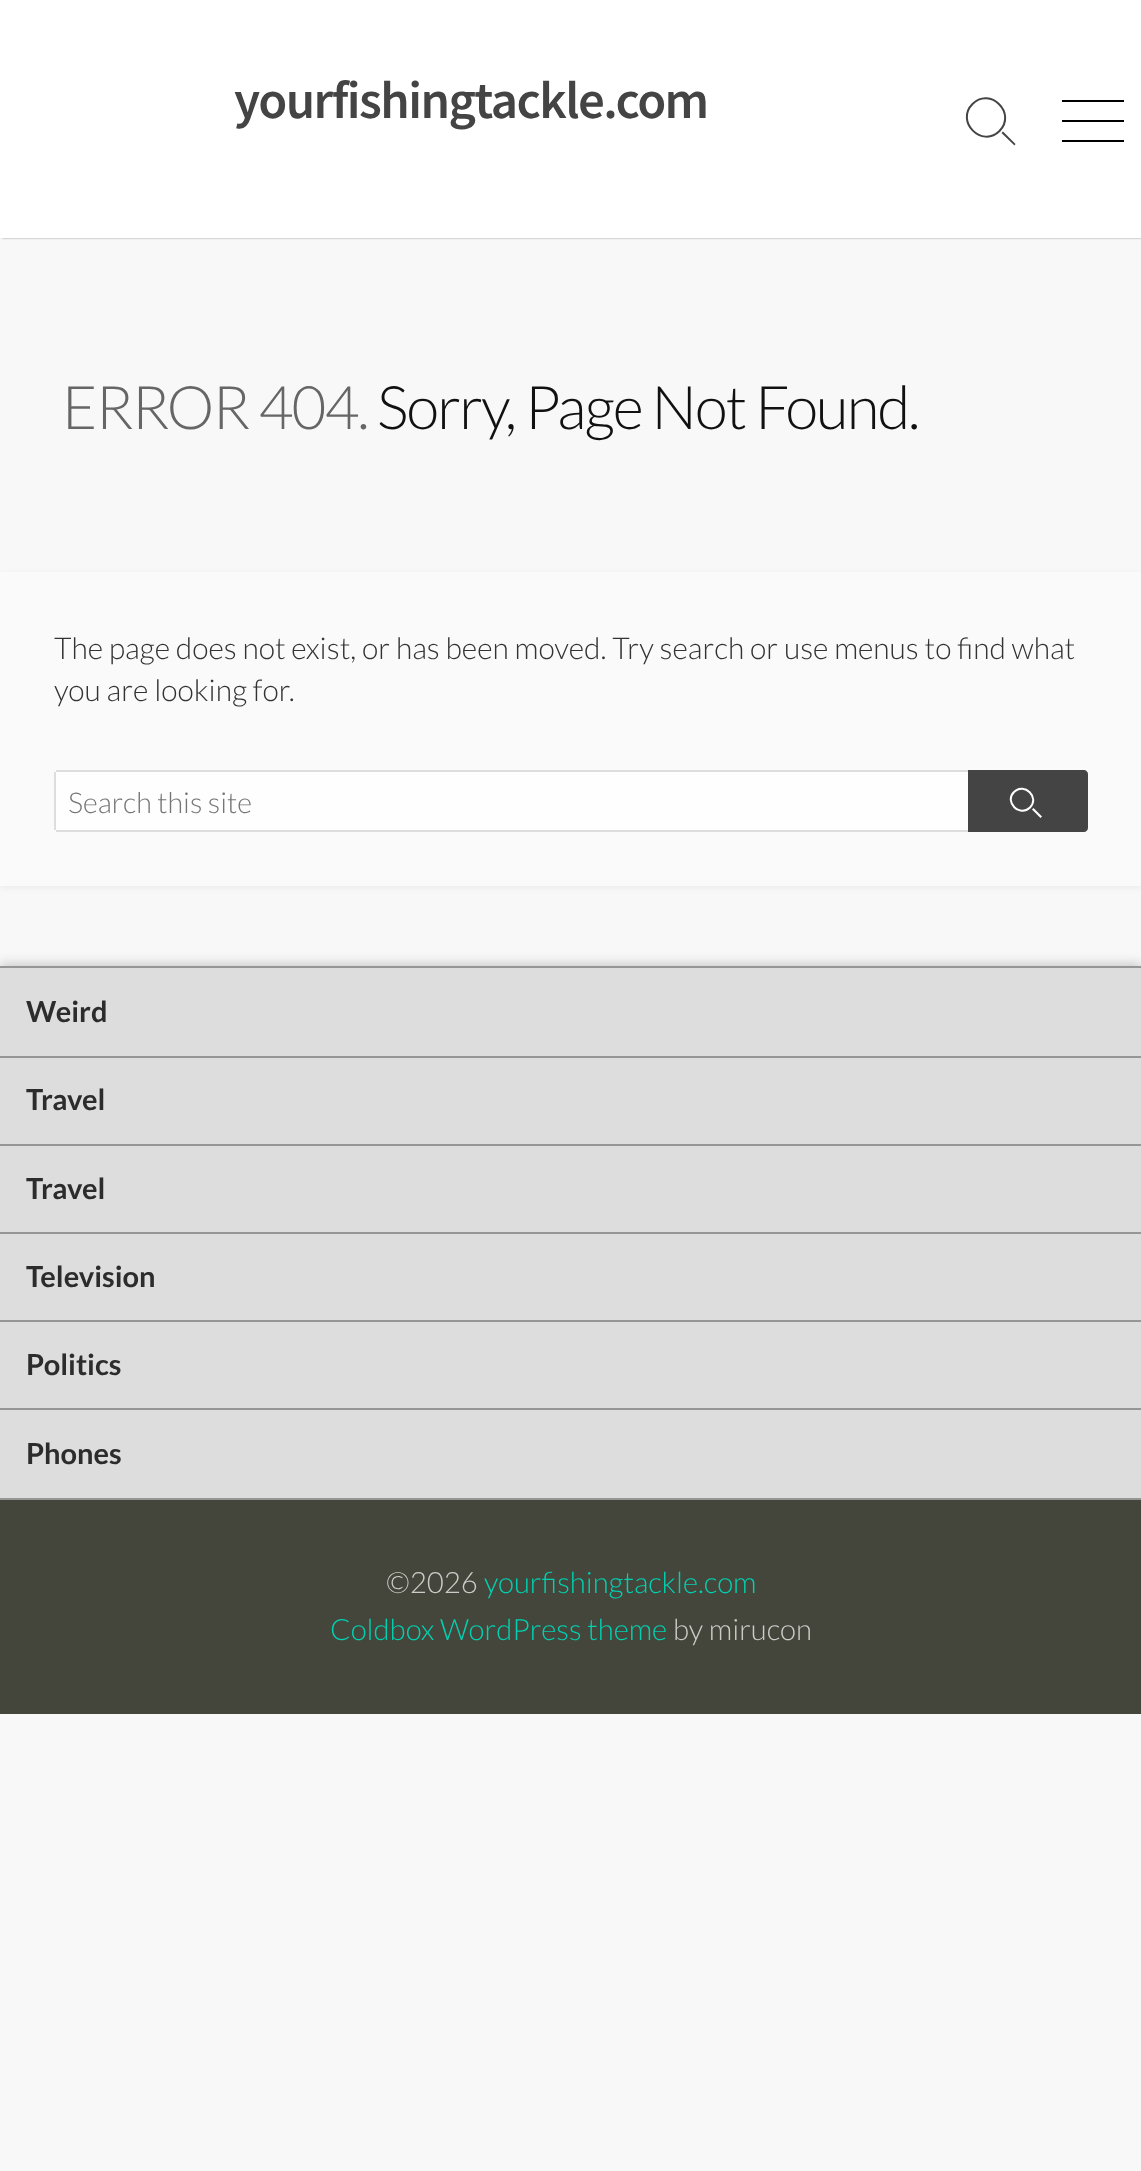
<svg xmlns="http://www.w3.org/2000/svg" width="1141" height="2171">
<rect width="100%" height="100%" fill="#f8f8f8"/>
<rect x="2" width="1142" height="238" fill="#00000066" filter="blur(1px)"/>
<rect width="1141" height="238" fill="#fff"/>
<text x="234" y="118" style="font-family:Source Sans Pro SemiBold;font-size:52.9px;font-weight:600;letter-spacing:-1.6px;fill:#444">yourfishingtackle.com</text>
<path d="M972.5 104c17.5-17.5 44.5 9 27 27c-17.5 17.5-44.5-9.5-27-27z" fill="none" stroke="#444" stroke-width="2"/>
<path d="M1001.5 133l1.5-1.5l12.5 12.5l-1 1.5z" fill="#444"/>
<rect x="1062" y="100" width="62" height="2" fill="#000"/>
<rect x="1062" y="120" width="62" height="2" fill="#000"/>
<rect x="1062" y="140" width="62" height="2" fill="#000"/>
<text x="62" y="429" style="font-family:Lato;font-size:60px;font-weight:300;letter-spacing:-1.8px;fill:#666">ERROR 404.</text>
<text x="377" y="429" style="font-family:Lato;font-size:60px;font-weight:300;letter-spacing:-1.8px;fill:#111">Sorry, Page Not Found.</text>
<rect y="574" width="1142" height="314" fill="#0000000d" filter="blur(3px)"/>
<rect y="572" width="1141" height="314" fill="#fafafa"/>
<text x="54" y="659" style="font-family:Lato;font-size:30px;font-weight:300;fill:#333">The page does not exist, or has been moved. Try search or use menus to find what</text>
<text x="54" y="701" style="font-family:Lato;font-size:30px;font-weight:300;fill:#333">you are looking for.</text>
<path d="M58 770h910v62h-910c-2 0-4-2-4-4v-54c0-2 2-4 4-4z" fill="#fefefe"/>
<rect x="56" y="770" width="912" height="2" fill="#ddd"/>
<rect x="56" y="830" width="912" height="2" fill="#ddd"/>
<rect x="54" y="772" width="2" height="58" fill="#ddd"/>
<text x="68" y="813" style="font-family:Lato;font-size:28.75px;font-weight:300;fill:#757575">Search this site</text>
<path d="M968 770h116c2 0 4 2 4 4v54c0 2-2 4-4 4h-116z" fill="#444"/>
<path d="M1014 792c10.5-10 26 5.5 16 15.5c-10.5 10-26-5.5-16-15.5z" fill="none" stroke="#fff" stroke-width="2"/>
<path d="M1032 809.5l1.5-1.5l8.5 8.5l-1.5 1.5z" fill="#fff"/>
<rect y="964" width="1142" height="534" fill="#00000033" filter="blur(6px)"/>
<rect y="968" width="1141" height="530" fill="#ddd"/>
<rect y="966" width="1141" height="2" fill="#969696"/>
<text x="26" y="1022" style="font-family:Lato;font-size:29px;font-weight:bold;fill:#2c2c2c">Weird</text>
<rect y="1056" width="1141" height="2" fill="#969696"/>
<text x="26" y="1110" style="font-family:Lato;font-size:29px;font-weight:bold;fill:#2c2c2c">Travel</text>
<rect y="1144" width="1141" height="2" fill="#969696"/>
<text x="26" y="1199" style="font-family:Lato;font-size:29px;font-weight:bold;fill:#2c2c2c">Travel</text>
<rect y="1232" width="1141" height="2" fill="#969696"/>
<text x="26" y="1287" style="font-family:Lato;font-size:29px;font-weight:bold;fill:#2c2c2c">Television</text>
<rect y="1320" width="1141" height="2" fill="#969696"/>
<text x="26" y="1375" style="font-family:Lato;font-size:29px;font-weight:bold;fill:#2c2c2c">Politics</text>
<rect y="1408" width="1141" height="2" fill="#969696"/>
<rect y="1498" width="1141" height="2" fill="#969696"/>
<text x="26" y="1464" style="font-family:Lato;font-size:29px;font-weight:bold;fill:#2c2c2c">Phones</text>
<rect y="1500" width="1141" height="214" fill="#44463b"/>
<text x="386" y="1593" style="font-family:Lato;font-size:29.4px;font-weight:300;fill:#cbcbc8">©2026</text>
<text x="484" y="1593" style="font-family:Lato;font-size:29.4px;font-weight:300;fill:#00d1b2">yourfishingtackle.com</text>
<text x="330" y="1640" style="font-family:Lato;font-size:29.4px;font-weight:300;fill:#00d1b2">Coldbox WordPress theme</text>
<text x="673" y="1640" style="font-family:Lato;font-size:29.4px;font-weight:300;fill:#cbcbc8">by mirucon</text>
</svg>
